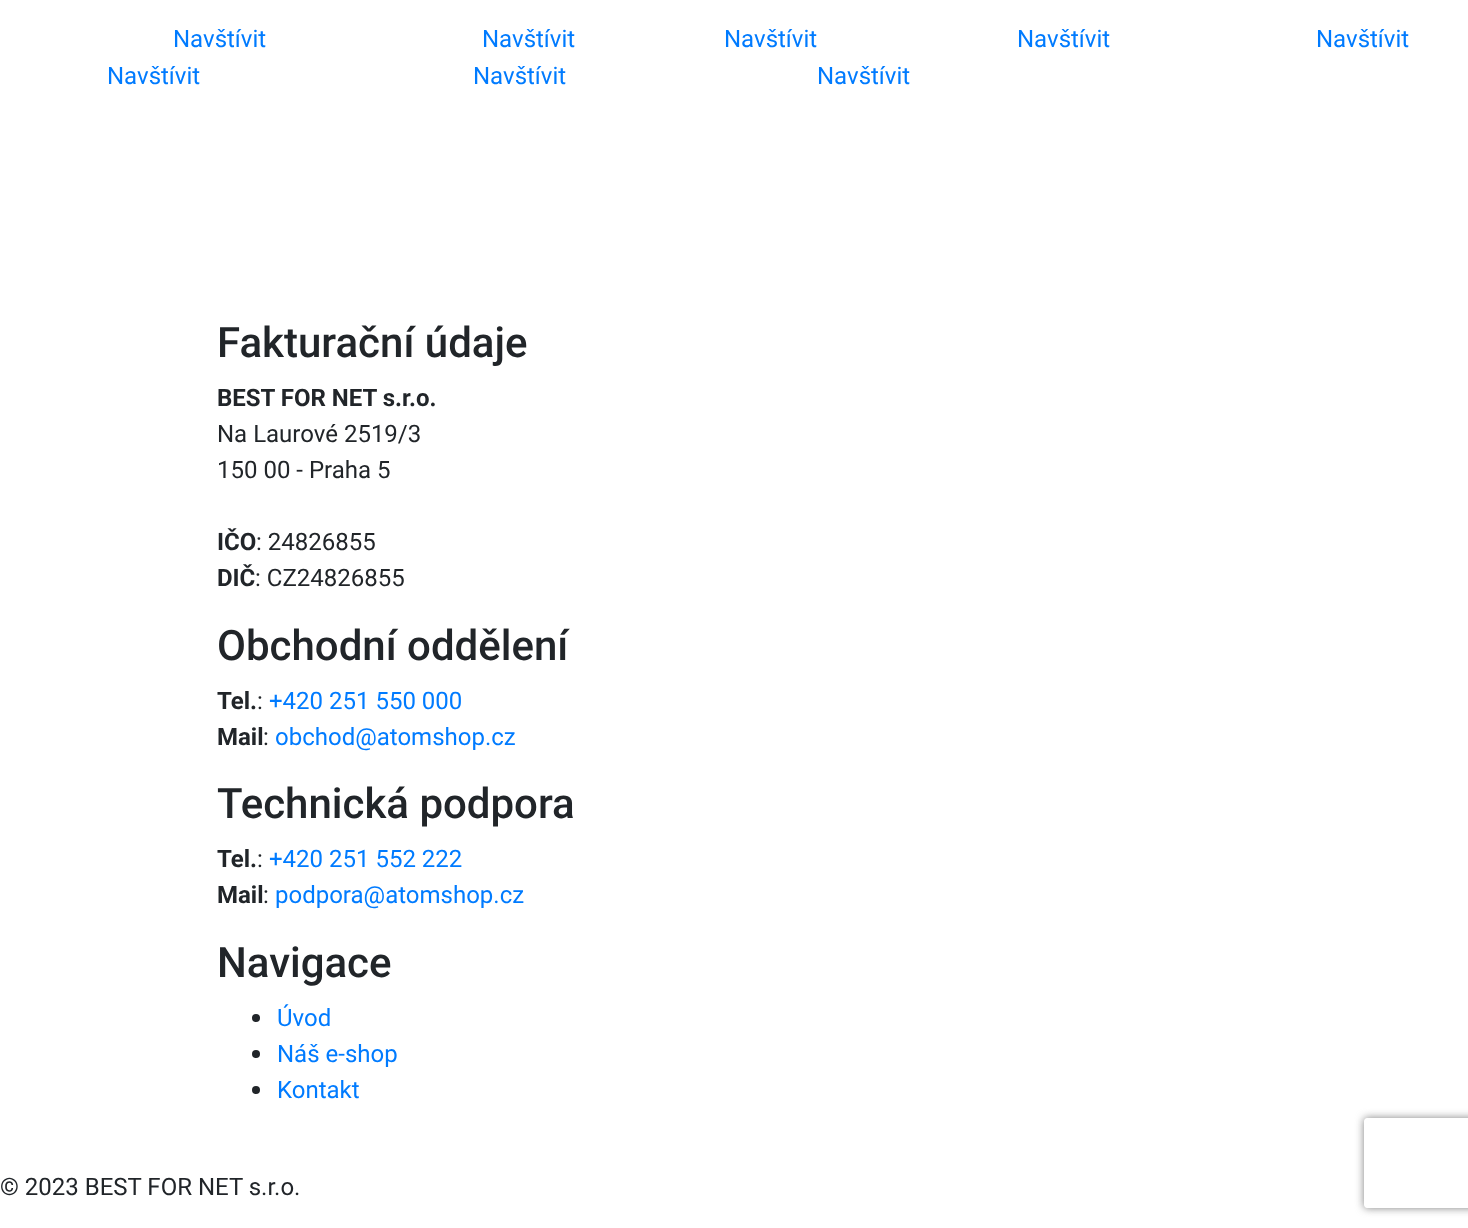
<svg xmlns="http://www.w3.org/2000/svg" width="1468" height="1228">
<defs>
<clipPath id="clip1"><path d="M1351 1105h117v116h-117zm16 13h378c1.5 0 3 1.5 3 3v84c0 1.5-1.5 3-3 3h-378c-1.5 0-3-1.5-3-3v-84c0-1.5 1.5-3 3-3z" clip-rule="evenodd"/></clipPath>
</defs>
<rect width="100%" height="100%" fill="#fff"/>
<text x="173" y="47" style="font-family:Roboto;font-size:24px;fill:#007bff">Navštívit</text>
<text x="482" y="47" style="font-family:Roboto;font-size:24px;fill:#007bff">Navštívit</text>
<text x="724" y="47" style="font-family:Roboto;font-size:24px;fill:#007bff">Navštívit</text>
<text x="1017" y="47" style="font-family:Roboto;font-size:24px;fill:#007bff">Navštívit</text>
<text x="1316" y="47" style="font-family:Roboto;font-size:24px;fill:#007bff">Navštívit</text>
<text x="107" y="84" style="font-family:Roboto;font-size:24px;fill:#007bff">Navštívit</text>
<text x="473" y="84" style="font-family:Roboto;font-size:24px;fill:#007bff">Navštívit</text>
<text x="817" y="84" style="font-family:Roboto;font-size:24px;fill:#007bff">Navštívit</text>
<text x="217" y="357" style="font-family:Roboto;font-size:42px;font-weight:500;fill:#212529">Fakturační údaje</text>
<text x="217" y="406" style="font-family:Roboto;font-size:24px;font-weight:bold;fill:#212529">BEST FOR NET s.r.o.</text>
<text x="217" y="442" style="font-family:Roboto;font-size:24px;fill:#212529">Na Laurové 2519/3</text>
<text x="217" y="478" style="font-family:Roboto;font-size:24px;fill:#212529">150 00 - Praha 5</text>
<text x="217" y="550" style="font-family:Roboto;font-size:24px;font-weight:bold;fill:#212529">IČO</text>
<text x="256" y="550" style="font-family:Roboto;font-size:24px;fill:#212529">: 24826855</text>
<text x="217" y="586" style="font-family:Roboto;font-size:24px;font-weight:bold;fill:#212529">DIČ</text>
<text x="255" y="586" style="font-family:Roboto;font-size:24px;fill:#212529">: CZ24826855</text>
<text x="217" y="660" style="font-family:Roboto;font-size:42px;font-weight:500;fill:#212529">Obchodní oddělení</text>
<text x="217" y="709" style="font-family:Roboto;font-size:24px;font-weight:bold;fill:#212529">Tel.</text>
<text x="257" y="709" style="font-family:Roboto;font-size:24px;fill:#212529">:</text>
<text x="269" y="709" style="font-family:Roboto;font-size:24px;fill:#007bff">+420 251 550 000</text>
<text x="217" y="745" style="font-family:Roboto;font-size:24px;font-weight:bold;fill:#212529">Mail</text>
<text x="263" y="745" style="font-family:Roboto;font-size:24px;fill:#212529">:</text>
<text x="275" y="745" style="font-family:Roboto;font-size:24px;fill:#007bff">obchod@atomshop.cz</text>
<text x="217" y="818" style="font-family:Roboto;font-size:42px;font-weight:500;fill:#212529">Technická podpora</text>
<text x="217" y="867" style="font-family:Roboto;font-size:24px;font-weight:bold;fill:#212529">Tel.</text>
<text x="257" y="867" style="font-family:Roboto;font-size:24px;fill:#212529">:</text>
<text x="269" y="867" style="font-family:Roboto;font-size:24px;fill:#007bff">+420 251 552 222</text>
<text x="217" y="903" style="font-family:Roboto;font-size:24px;font-weight:bold;fill:#212529">Mail</text>
<text x="263" y="903" style="font-family:Roboto;font-size:24px;fill:#212529">:</text>
<text x="275" y="903" style="font-family:Roboto;font-size:24px;fill:#007bff">podpora@atomshop.cz</text>
<text x="217" y="977" style="font-family:Roboto;font-size:42px;font-weight:500;fill:#212529">Navigace</text>
<circle cx="256" cy="1018" r="4" fill="#212529"/>
<text x="277" y="1026" style="font-family:Roboto;font-size:24px;fill:#007bff">Úvod</text>
<circle cx="256" cy="1054" r="4" fill="#212529"/>
<text x="277" y="1062" style="font-family:Roboto;font-size:24px;fill:#007bff">Náš e-shop</text>
<circle cx="256" cy="1090" r="4" fill="#212529"/>
<text x="277" y="1098" style="font-family:Roboto;font-size:24px;fill:#007bff">Kontakt</text>
<text x="0" y="1195" style="font-family:Roboto;font-size:24px;fill:#212529">© 2023 BEST FOR NET s.r.o.</text>
<g clip-path="url(#clip1)">
<rect x="1364" y="1118" width="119" height="90" rx="3" fill="#808080" filter="blur(4px)"/>
</g>
</svg>
